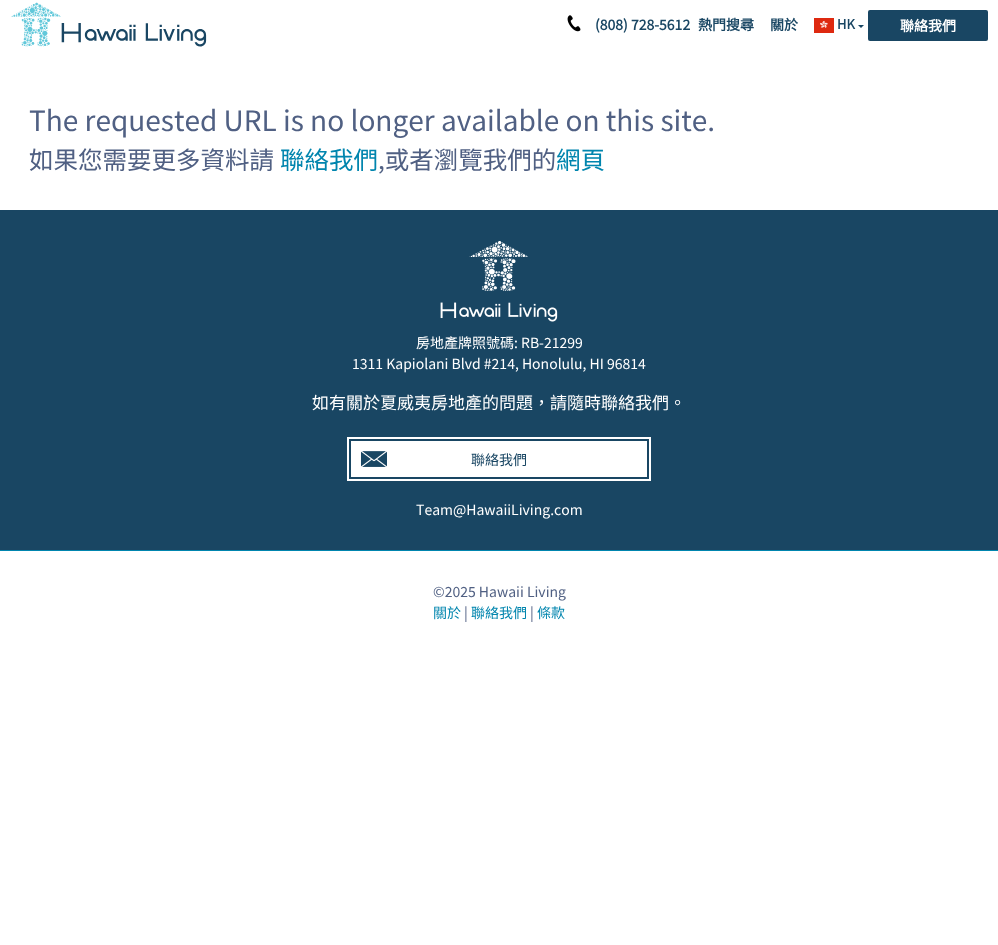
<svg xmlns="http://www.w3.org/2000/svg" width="998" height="945">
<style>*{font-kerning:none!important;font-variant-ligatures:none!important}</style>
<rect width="100%" height="100%" fill="#fff"/>
<image x="11" y="2" width="196" height="45" href="media/1.png"/>
<image x="567" y="15" width="14" height="17" href="media/2.png"/>
<text x="595" y="30" style="font-family:Noto Sans TC;font-size:14px;font-weight:bold;fill:#194663">(808) 728-5612</text>
<text x="698" y="30" style="font-family:Noto Sans TC;font-size:14px;font-weight:bold;fill:#194663">熱門搜尋</text>
<text x="770" y="30" style="font-family:Noto Sans TC;font-size:14px;font-weight:bold;fill:#194663">關於</text>
<image x="814" y="18" width="20" height="15" href="media/3.png"/>
<text x="837" y="29" style="font-family:Noto Sans TC;font-size:13px;font-weight:bold;fill:#194663">HK</text>
<path d="M858 25h6l-3 3z" fill="#194663"/>
<rect x="868" y="10" width="120" height="31" rx="2" fill="#194663"/>
<text x="900" y="31" style="font-family:Noto Sans TC;font-size:14px;font-weight:bold;fill:#fff">聯絡我們</text>
<text x="29" y="131" style="font-family:Noto Sans TC;font-size:28px;font-weight:100;fill:#506083">The requested URL is no longer available on this site.</text>
<text x="29" y="169" style="font-family:Noto Sans TC;font-size:24.5px;font-weight:100;fill:#506083">如果您需要更多資料請</text>
<text x="280" y="169" style="font-family:Noto Sans TC;font-size:24.5px;font-weight:100;fill:#0085ae">聯絡我們</text>
<text x="378" y="169" style="font-family:Noto Sans TC;font-size:24.5px;font-weight:100;fill:#506083">,或者瀏覽我們的</text>
<text x="556" y="169" style="font-family:Noto Sans TC;font-size:24.5px;font-weight:100;fill:#0085ae">網頁</text>
<rect y="210" width="998" height="340" fill="#194663"/>
<image x="469" y="241" width="59" height="50" href="media/4.png"/>
<image x="440" y="302" width="118" height="20" href="media/5.png"/>
<text x="416" y="348" style="font-family:Noto Sans TC;font-size:14px;font-weight:100;fill:#fff">房地產牌照號碼: RB-21299</text>
<text x="352" y="369" style="font-family:Noto Sans TC;font-size:14px;font-weight:100;fill:#fff">1311 Kapiolani Blvd #214, Honolulu, HI 96814</text>
<text x="312" y="409" style="font-family:Noto Sans TC;font-size:17px;font-weight:100;fill:#fff">如有關於夏威夷房地產的問題，請隨時聯絡我們。</text>
<rect x="351" y="441" width="296" height="36" fill="#fff"/>
<image x="361" y="451" width="26" height="16" href="media/6.png"/>
<rect x="348" y="438" width="302" height="42" fill="none" stroke="#fff" stroke-width="2"/>
<text x="471" y="465" style="font-family:Noto Sans TC;font-size:14px;font-weight:100;fill:#194663">聯絡我們</text>
<text x="416" y="515" style="font-family:Noto Sans TC;font-size:14px;font-weight:100;fill:#fff">Team@HawaiiLiving.com</text>
<rect y="550" width="998" height="1" fill="#0085ae"/>
<text x="433" y="597" style="font-family:Noto Sans TC;font-size:14px;font-weight:100;fill:#506083">©2025 Hawaii Living</text>
<text x="433" y="618" style="font-family:Noto Sans TC;font-size:14px;font-weight:100;fill:#0085ae">關於</text>
<text x="464" y="618" style="font-family:Noto Sans TC;font-size:14px;font-weight:100;fill:#506083">|</text>
<text x="471" y="618" style="font-family:Noto Sans TC;font-size:14px;font-weight:100;fill:#0085ae">聯絡我們</text>
<text x="530" y="618" style="font-family:Noto Sans TC;font-size:14px;font-weight:100;fill:#506083">|</text>
<text x="537" y="618" style="font-family:Noto Sans TC;font-size:14px;font-weight:100;fill:#0085ae">條款</text>
</svg>
